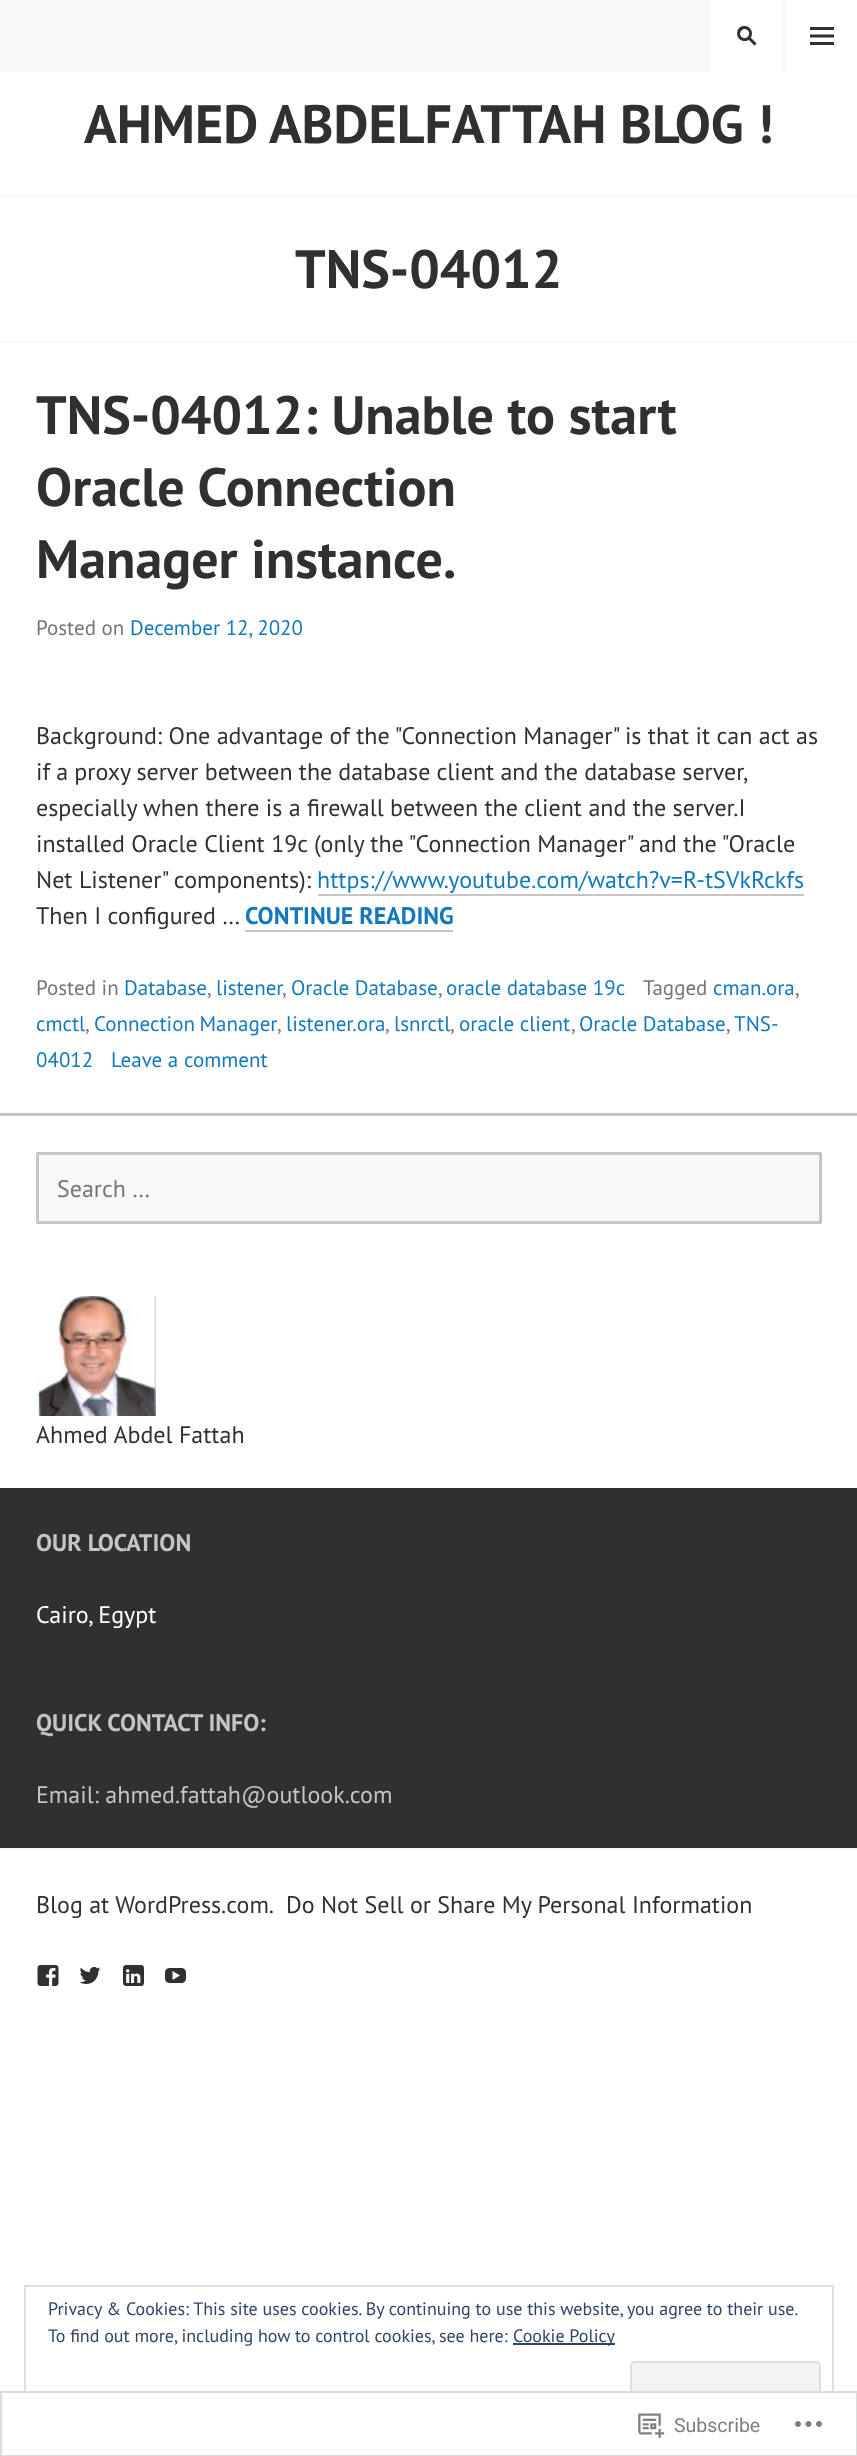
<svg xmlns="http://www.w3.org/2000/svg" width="857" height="2456">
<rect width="100%" height="100%" fill="#fff"/>
<rect y="195" width="857" height="2" fill="#f8f8f8"/>
<rect width="786" height="72" fill="#f8f8f8"/>
<rect x="711" width="72" height="72" fill="#fff"/>
<image x="737" y="26" width="20" height="20" href="media/1.png"/>
<image x="810" y="27" width="24" height="18" href="media/2.png"/>
<text x="84" y="143" style="font-family:PT Sans;font-size:54px;font-weight:bold;fill:#303030">AHMED ABDELFATTAH BLOG !</text>
<rect y="341" width="857" height="2" fill="#f8f8f8"/>
<text x="295" y="288" style="font-family:PT Sans;font-size:54px;font-weight:bold;fill:#303030">TNS-04012</text>
<text x="36" y="434" style="font-family:PT Sans;font-size:54px;font-weight:bold;fill:#303030">TNS-04012: Unable to start</text>
<text x="36" y="506" style="font-family:PT Sans;font-size:54px;font-weight:bold;fill:#303030">Oracle Connection</text>
<text x="36" y="578" style="font-family:PT Sans;font-size:54px;font-weight:bold;fill:#303030">Manager instance.</text>
<text x="36" y="635" style="font-family:PT Sans;font-size:21px;fill:#757575">Posted on</text>
<text x="130" y="635" style="font-family:PT Sans;font-size:21px;fill:#1279be">December 12, 2020</text>
<text x="36" y="744" style="font-family:PT Sans;font-size:24px;fill:#303030">Background: One advantage of the "Connection Manager" is that it can act as</text>
<text x="36" y="780" word-spacing="-0.25" style="font-family:PT Sans;font-size:24px;fill:#303030">if a proxy server between the database client and the database server,</text>
<text x="36" y="816" style="font-family:PT Sans;font-size:24px;fill:#303030">especially when there is a firewall between the client and the server.I</text>
<text x="36" y="852" style="font-family:PT Sans;font-size:24px;fill:#303030">installed Oracle Client 19c (only the "Connection Manager" and the "Oracle</text>
<text x="36" y="888" style="font-family:PT Sans;font-size:24px;fill:#303030">Net Listener" components):</text>
<text x="317" y="888" style="font-family:PT Sans;font-size:24px;fill:#1279be">https://www.youtube.com/watch?v=R-tSVkRckfs</text>
<rect x="318" y="894" width="486" height="2" fill="#c5c5c5"/>
<text x="36" y="924" style="font-family:PT Sans;font-size:24px;fill:#303030">Then I configured …</text>
<text x="245" y="924" style="font-family:PT Sans;font-size:24px;font-weight:bold;fill:#1279be">CONTINUE READING</text>
<rect x="245" y="930" width="208" height="2" fill="#c5c5c5"/>
<text x="36" y="995" style="font-family:PT Sans;font-size:21px;fill:#757575">Posted in</text>
<text x="124" y="995" style="font-family:PT Sans;font-size:21px;fill:#1279be">Database</text>
<text x="207" y="995" style="font-family:PT Sans;font-size:21px;fill:#757575">,</text>
<text x="216" y="995" style="font-family:PT Sans;font-size:21px;fill:#1279be">listener</text>
<text x="282" y="995" style="font-family:PT Sans;font-size:21px;fill:#757575">,</text>
<text x="291" y="995" style="font-family:PT Sans;font-size:21px;fill:#1279be">Oracle Database</text>
<text x="438" y="995" style="font-family:PT Sans;font-size:21px;fill:#757575">,</text>
<text x="446" y="995" style="font-family:PT Sans;font-size:21px;fill:#1279be">oracle database 19c</text>
<text x="643" y="995" style="font-family:PT Sans;font-size:21px;fill:#757575">Tagged</text>
<text x="713" y="995" style="font-family:PT Sans;font-size:21px;fill:#1279be">cman.ora</text>
<text x="795" y="995" style="font-family:PT Sans;font-size:21px;fill:#757575">,</text>
<text x="36" y="1031" style="font-family:PT Sans;font-size:21px;fill:#1279be">cmctl</text>
<text x="85" y="1031" style="font-family:PT Sans;font-size:21px;fill:#757575">,</text>
<text x="94" y="1031" word-spacing="-1" style="font-family:PT Sans;font-size:21px;fill:#1279be">Connection Manager</text>
<text x="277" y="1031" style="font-family:PT Sans;font-size:21px;fill:#757575">,</text>
<text x="286" y="1031" style="font-family:PT Sans;font-size:21px;fill:#1279be">listener.ora</text>
<text x="385" y="1031" style="font-family:PT Sans;font-size:21px;fill:#757575">,</text>
<text x="394" y="1031" style="font-family:PT Sans;font-size:21px;fill:#1279be">lsnrctl</text>
<text x="450" y="1031" style="font-family:PT Sans;font-size:21px;fill:#757575">,</text>
<text x="459" y="1031" style="font-family:PT Sans;font-size:21px;fill:#1279be">oracle client</text>
<text x="571" y="1031" style="font-family:PT Sans;font-size:21px;fill:#757575">,</text>
<text x="579" y="1031" style="font-family:PT Sans;font-size:21px;fill:#1279be">Oracle Database</text>
<text x="726" y="1031" style="font-family:PT Sans;font-size:21px;fill:#757575">,</text>
<text x="734" y="1031" style="font-family:PT Sans;font-size:21px;fill:#1279be">TNS-</text>
<text x="36" y="1067" style="font-family:PT Sans;font-size:21px;fill:#1279be">04012</text>
<text x="111" y="1067" style="font-family:PT Sans;font-size:21px;fill:#1279be">Leave a comment</text>
<rect y="1113" width="857" height="3" fill="#c5c5c5"/>
<rect x="37.5" y="1153.5" width="783" height="69" fill="#f8f8f8" stroke="#c5c5c5" stroke-width="3"/>
<text x="57" y="1197" style="font-family:PT Sans;font-size:24px;fill:#757575">Search …</text>
<image x="36" y="1296" width="120" height="120" href="media/3.png"/>
<text x="36" y="1443" style="font-family:PT Sans;font-size:24px;fill:#303030">Ahmed Abdel Fattah</text>
<rect y="1488" width="857" height="360" fill="#303030"/>
<text x="36" y="1551" style="font-family:PT Sans;font-size:24px;font-weight:bold;fill:#c5c5c5">OUR LOCATION</text>
<text x="36" y="1623" style="font-family:PT Sans;font-size:24px;fill:#fff">Cairo, Egypt</text>
<text x="36" y="1731" style="font-family:PT Sans;font-size:24px;font-weight:bold;fill:#c5c5c5">QUICK CONTACT INFO:</text>
<text x="36" y="1803" style="font-family:PT Sans;font-size:24px;fill:#c5c5c5">Email: ahmed.fattah@outlook.com</text>
<rect y="1848" width="857" height="2" fill="#f8f8f8"/>
<text x="36" y="1913" style="font-family:PT Sans;font-size:24px;fill:#303030">Blog at WordPress.com.</text>
<text x="286" y="1913" style="font-family:PT Sans;font-size:24px;fill:#303030">Do Not Sell or Share My Personal Information</text>
<image x="37" y="1965" width="22" height="21" href="media/4.png"/>
<image x="79" y="1966" width="22" height="18" href="media/5.png"/>
<image x="123" y="1965" width="21" height="21" href="media/6.png"/>
<image x="165" y="1968" width="21" height="15" href="media/7.png"/>
<rect x="25" y="2286" width="808" height="146" fill="none" stroke="#dedede" stroke-width="2"/>
<text x="48" y="2315" style="font-family:PT Sans;font-size:18px;fill:#2e4467">Privacy &amp; Cookies: This site uses cookies. By continuing to use this website, you agree to their use.</text>
<text x="48" y="2342" style="font-family:PT Sans;font-size:18px;fill:#2e4467">To find out more, including how to control cookies, see here:</text>
<rect x="513" y="2343" width="102" height="2" fill="#2e4467"/>
<text x="513" y="2342" style="font-family:PT Sans;font-size:18px;fill:#2e4467">Cookie Policy</text>
<rect x="631" y="2362" width="189" height="57" rx="4" fill="#f3f3f3" stroke="#dedede" stroke-width="2"/>
<rect x="24" y="2391" width="810" height="42" fill="#fffffffa"/>
<rect x="1" y="2392" width="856" height="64" fill="none" stroke="#dcdcdefa" stroke-width="2"/>
<image x="638" y="2413" width="27" height="25" href="media/8.png"/>
<text x="674" y="2432" style="font-family:Roboto;font-size:19.5px;fill:#7b7f84">Subscribe</text>
<image x="795" y="2421" width="27" height="6" href="media/9.png"/>
</svg>
